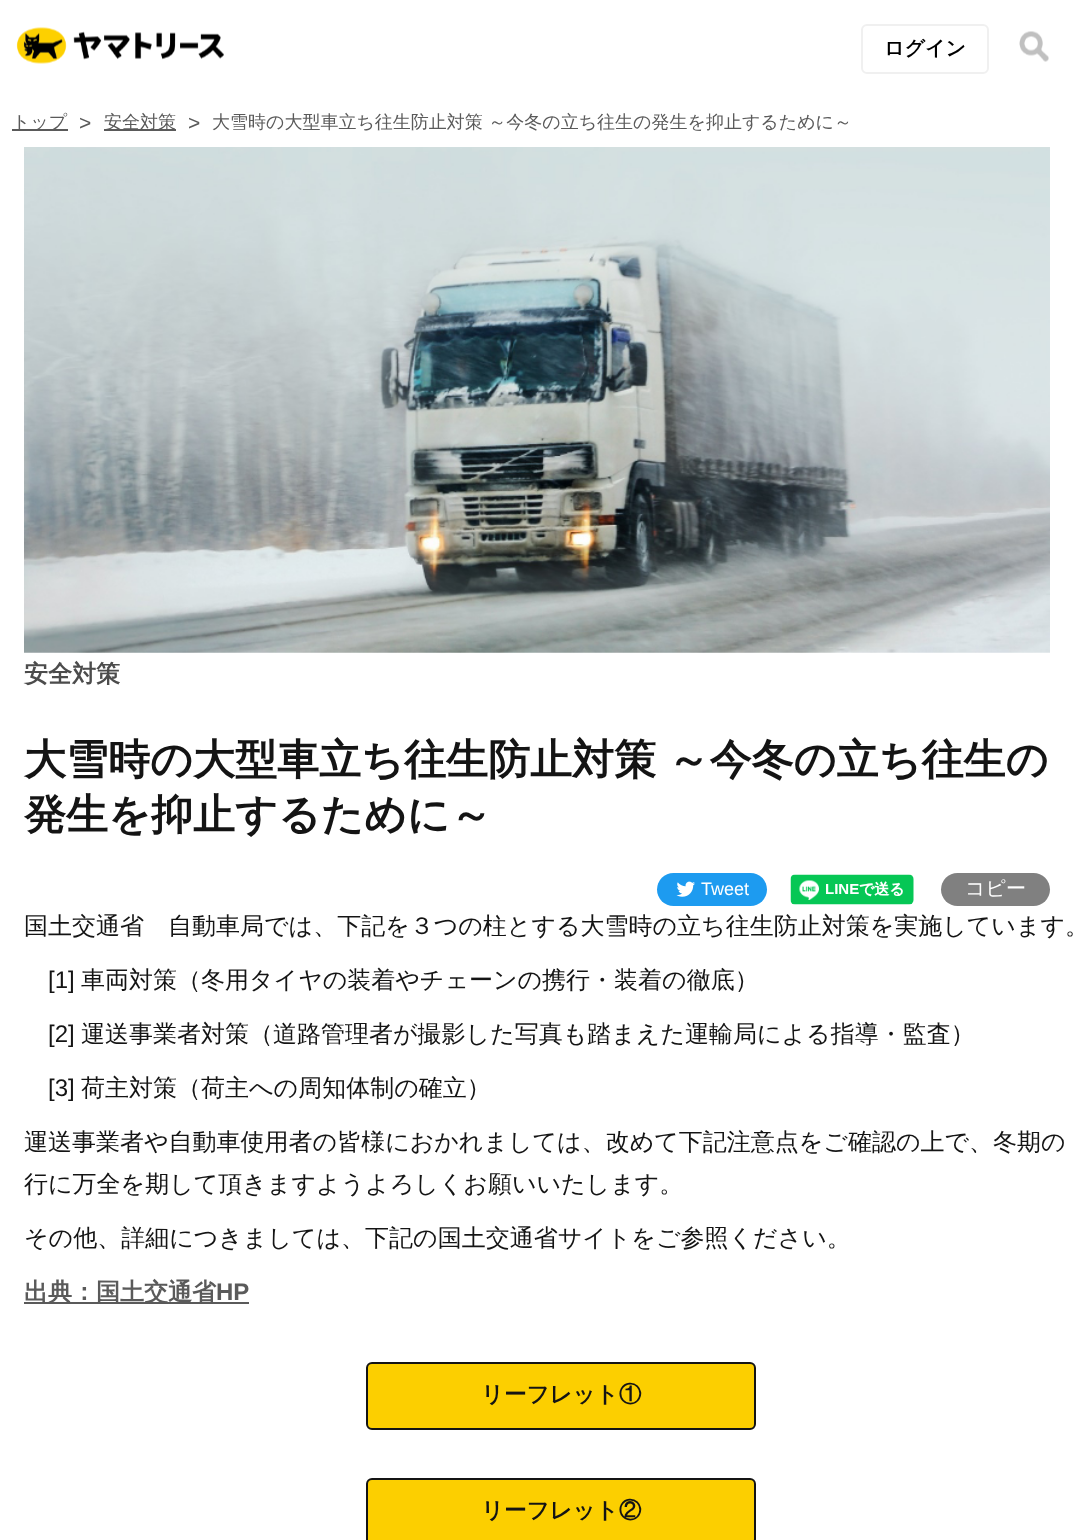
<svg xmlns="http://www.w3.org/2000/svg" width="1074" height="1540">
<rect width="100%" height="100%" fill="#fff"/>
<image x="16" y="27" width="208" height="37" href="media/1.png"/>
<rect x="862" y="25" width="126" height="48" rx="5" fill="none" stroke="#f0f0f0" stroke-width="2"/>
<text x="884" y="55" style="font-family:WenQuanYi Zen Hei;font-size:20px;font-weight:bold;fill:#000">ログイン</text>
<image x="1019" y="31" width="30" height="31" href="media/2.png"/>
<rect x="12" y="129" width="56" height="2" fill="#5a5a5a"/>
<text x="12" y="128" style="font-family:WenQuanYi Zen Hei;font-size:18px;font-weight:500;fill:#5a5a5a">トップ</text>
<text x="79" y="130" style="font-family:Liberation Sans;font-size:21px;fill:#5a5a5a">&gt;</text>
<rect x="104" y="129" width="72" height="2" fill="#5a5a5a"/>
<text x="104" y="128" style="font-family:WenQuanYi Zen Hei;font-size:18px;font-weight:500;fill:#5a5a5a">安全対策</text>
<text x="188" y="130" style="font-family:Liberation Sans;font-size:21px;fill:#5a5a5a">&gt;</text>
<text x="212" y="128" style="font-family:WenQuanYi Zen Hei;font-size:18px;font-weight:500;fill:#5a5a5a">大雪時の大型車立ち往生防止対策 ～今冬の立ち往生の発生を抑止するために～</text>
<image x="24" y="147" width="1026" height="506" href="media/3.png"/>
<text x="24" y="682" style="font-family:WenQuanYi Zen Hei;font-size:24px;font-weight:bold;fill:#4c4c4c">安全対策</text>
<text x="24" y="774" word-spacing="-1" style="font-family:WenQuanYi Zen Hei;font-size:42px;font-weight:bold;fill:#141414">大雪時の大型車立ち往生防止対策 ～今冬の立ち往生の</text>
<text x="24" y="829" style="font-family:WenQuanYi Zen Hei;font-size:42px;font-weight:bold;fill:#141414">発生を抑止するために～</text>
<rect x="657" y="873" width="110" height="33" rx="16.5" fill="#1d9bf0"/>
<image x="676" y="881" width="19" height="16" href="media/4.png"/>
<text x="701" y="895" style="font-family:Liberation Sans;font-size:18px;fill:#fff">Tweet</text>
<image x="790" y="874" width="124" height="31" href="media/5.png"/>
<rect x="941" y="873" width="109" height="33" rx="16.5" fill="#808080"/>
<text x="965" y="895" style="font-family:WenQuanYi Zen Hei;font-size:20px;font-weight:500;fill:#fff">コピー</text>
<text x="24" y="934" style="font-family:WenQuanYi Zen Hei;font-size:24px;font-weight:500;fill:#141414">国土交通省　自動車局では、下記を３つの柱とする大雪時の立ち往生防止対策を実施しています。</text>
<text x="48" y="988" style="font-family:Liberation Sans;font-size:24px;fill:#141414">[1]</text>
<text x="81" y="988" style="font-family:WenQuanYi Zen Hei;font-size:24px;font-weight:500;fill:#141414">車両対策（冬用タイヤの装着やチェーンの携行・装着の徹底）</text>
<text x="48" y="1042" style="font-family:Liberation Sans;font-size:24px;fill:#141414">[2]</text>
<text x="81" y="1042" style="font-family:WenQuanYi Zen Hei;font-size:24px;font-weight:500;fill:#141414">運送事業者対策（道路管理者が撮影した写真も踏まえた運輸局による指導・監査）</text>
<text x="48" y="1096" style="font-family:Liberation Sans;font-size:24px;fill:#141414">[3]</text>
<text x="81" y="1096" style="font-family:WenQuanYi Zen Hei;font-size:24px;font-weight:500;fill:#141414">荷主対策（荷主への周知体制の確立）</text>
<text x="24" y="1150" style="font-family:WenQuanYi Zen Hei;font-size:24px;font-weight:500;fill:#141414">運送事業者や自動車使用者の皆様におかれましては、改めて下記注意点をご確認の上で、冬期の</text>
<text x="24" y="1192" style="font-family:WenQuanYi Zen Hei;font-size:24px;font-weight:500;fill:#141414">行に万全を期して頂きますようよろしくお願いいたします。</text>
<text x="24" y="1246" style="font-family:WenQuanYi Zen Hei;font-size:24px;font-weight:500;fill:#141414">その他、詳細につきましては、下記の国土交通省サイトをご参照ください。</text>
<rect x="24" y="1302" width="225" height="2" fill="#5a5a5a"/>
<text x="24" y="1300" style="font-family:WenQuanYi Zen Hei;font-size:24px;font-weight:bold;fill:#5a5a5a">出典：国土交通省</text>
<text x="216" y="1300" style="font-family:Liberation Sans;font-size:24px;font-weight:bold;fill:#5a5a5a">HP</text>
<rect x="367" y="1363" width="388" height="66" rx="5" fill="#fccf00" stroke="#141414" stroke-width="2"/>
<text x="481" y="1402" style="font-family:WenQuanYi Zen Hei;font-size:22.5px;font-weight:bold;fill:#141414">リーフレット①</text>
<rect x="367" y="1479" width="388" height="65" rx="5" fill="#fccf00" stroke="#141414" stroke-width="2"/>
<text x="481" y="1518" style="font-family:WenQuanYi Zen Hei;font-size:22.5px;font-weight:bold;fill:#141414">リーフレット②</text>
</svg>
